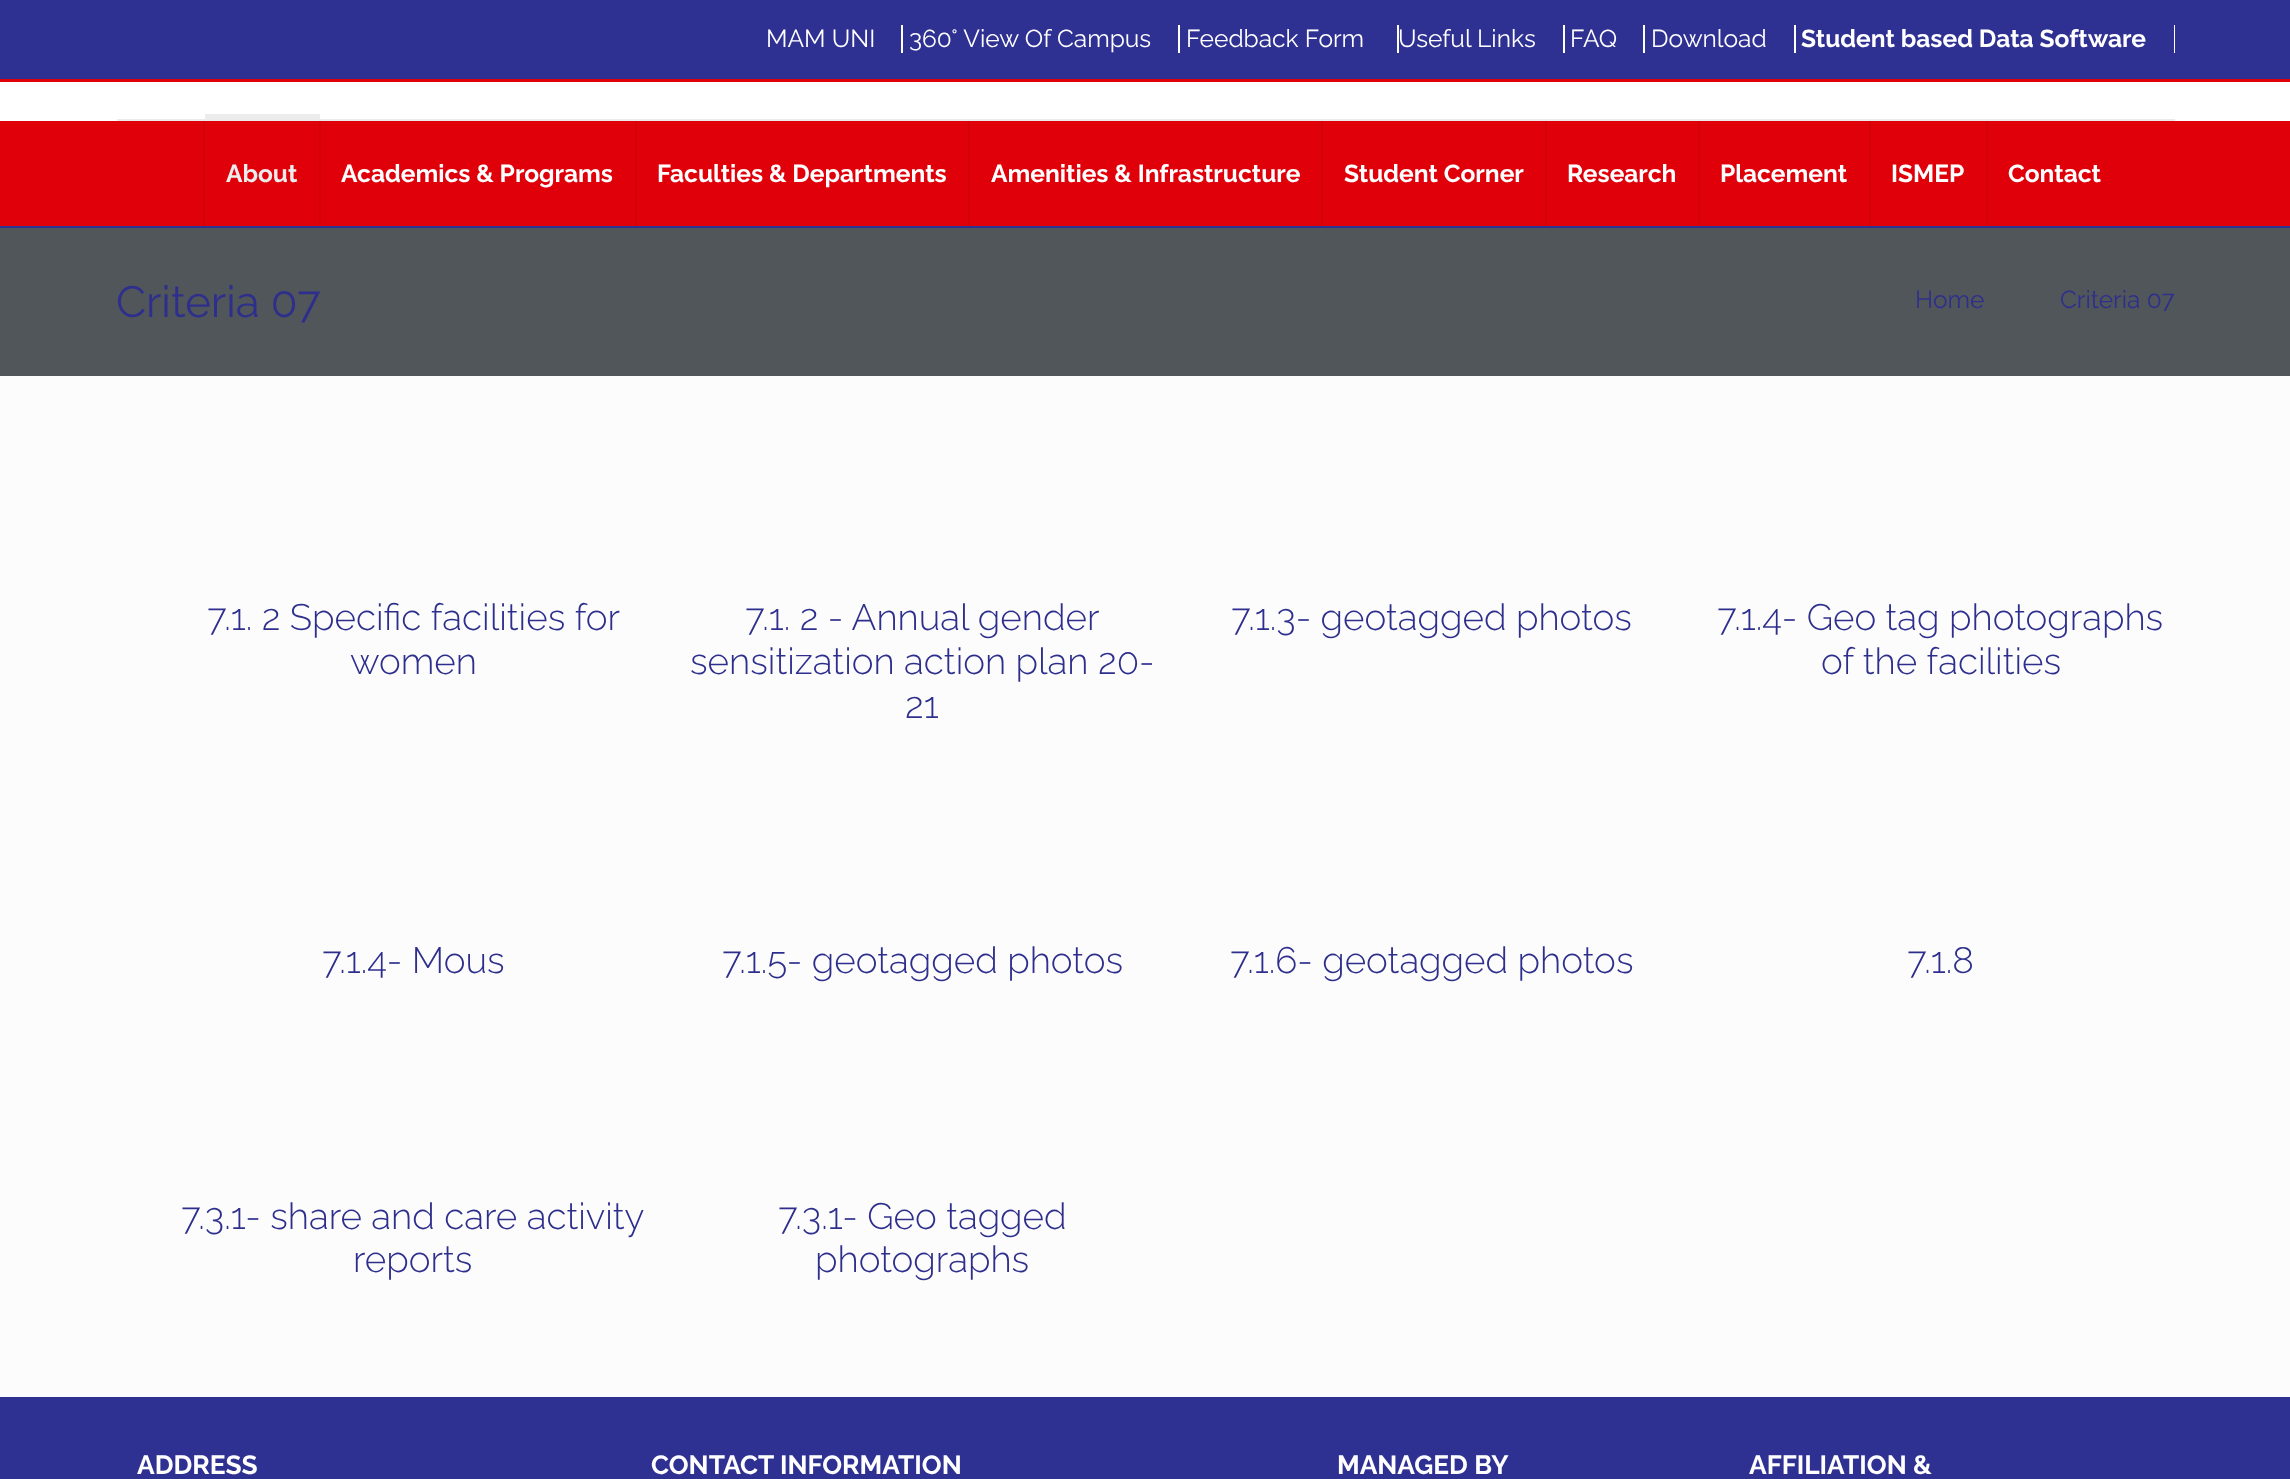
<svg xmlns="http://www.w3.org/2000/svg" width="2290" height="1479">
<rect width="100%" height="100%" fill="#fcfcfc"/>
<rect y="228" width="2290" height="148" fill="#51565a"/>
<rect width="2290" height="79" fill="#2f3192"/>
<rect y="79" width="2290" height="3" fill="#df0009"/>
<text x="766" y="47" style="font-family:Raleway;font-size:24.5px;fill:#fff">MAM UNI</text>
<rect x="901" y="25" width="2" height="28" fill="#fff"/>
<text x="909" y="47" style="font-family:Raleway;font-size:24.5px;fill:#fff">360° View Of Campus</text>
<rect x="1178" y="25" width="2" height="28" fill="#fff"/>
<text x="1186" y="47" style="font-family:Raleway;font-size:24.5px;fill:#fff">Feedback Form</text>
<rect x="1397" y="25" width="2" height="28" fill="#fff"/>
<text x="1398" y="47" style="font-family:Raleway;font-size:24.5px;fill:#fff">Useful Links</text>
<rect x="1563" y="25" width="2" height="28" fill="#fff"/>
<text x="1570" y="47" style="font-family:Raleway;font-size:24.5px;fill:#fff">FAQ</text>
<rect x="1643" y="25" width="2" height="28" fill="#fff"/>
<text x="1651" y="47" style="font-family:Raleway;font-size:24.5px;fill:#fff">Download</text>
<rect x="1794" y="25" width="2" height="28" fill="#fff"/>
<text x="1801" y="47" style="font-family:Raleway;font-size:24.5px;font-weight:bold;fill:#fff">Student based Data Software</text>
<rect x="2174" y="25" width="1" height="28" fill="#fff"/>
<rect y="82" width="2290" height="39" fill="#fff"/>
<rect y="226" width="2290" height="2" fill="#2f3192"/>
<rect x="117" y="119" width="2058" height="2" fill="#ebebeb"/>
<rect y="121" width="2290" height="105" fill="#df0009"/>
<rect x="203" y="121" width="2" height="105" fill="#d40009"/>
<rect x="205" y="114" width="115" height="5" fill="#ececed"/>
<rect x="319" y="121" width="2" height="105" fill="#d40009"/>
<text x="226" y="182" style="font-family:Raleway;font-size:24.5px;font-weight:bold;fill:#ececed">About</text>
<rect x="635" y="121" width="2" height="105" fill="#d40009"/>
<text x="341" y="182" style="font-family:Raleway;font-size:24.5px;font-weight:bold;fill:#fff">Academics &amp; Programs</text>
<rect x="968" y="121" width="2" height="105" fill="#d40009"/>
<text x="657" y="182" style="font-family:Raleway;font-size:24.5px;font-weight:bold;fill:#fff">Faculties &amp; Departments</text>
<rect x="1321" y="121" width="2" height="105" fill="#d40009"/>
<text x="991" y="182" style="font-family:Raleway;font-size:24.5px;font-weight:bold;fill:#fff">Amenities &amp; Infrastructure</text>
<rect x="1545" y="121" width="2" height="105" fill="#d40009"/>
<text x="1344" y="182" style="font-family:Raleway;font-size:24.5px;font-weight:bold;fill:#fff">Student Corner</text>
<rect x="1698" y="121" width="2" height="105" fill="#d40009"/>
<text x="1567" y="182" style="font-family:Raleway;font-size:24.5px;font-weight:bold;fill:#fff">Research</text>
<rect x="1869" y="121" width="2" height="105" fill="#d40009"/>
<text x="1720" y="182" style="font-family:Raleway;font-size:24.5px;font-weight:bold;fill:#fff">Placement</text>
<rect x="1986" y="121" width="2" height="105" fill="#d40009"/>
<text x="1891" y="182" style="font-family:Raleway;font-size:24.5px;font-weight:bold;fill:#fff">ISMEP</text>
<text x="2008" y="182" style="font-family:Raleway;font-size:24.5px;font-weight:bold;fill:#fff">Contact</text>
<text x="116" y="317" style="font-family:Raleway;font-size:43.75px;fill:#2e2f8d">Criteria 07</text>
<text x="1915" y="308" style="font-family:Raleway;font-size:24.5px;fill:#2e2f8d">Home</text>
<text x="2060" y="308" style="font-family:Raleway;font-size:24.5px;fill:#2e2f8d">Criteria 07</text>
<text x="207" y="630" style="font-family:Raleway;font-size:36.75px;font-weight:300;fill:#2e2f8d">7.1. 2 Specific facilities for</text>
<text x="350" y="674" style="font-family:Raleway;font-size:36.75px;font-weight:300;fill:#2e2f8d">women</text>
<text x="745" y="630" style="font-family:Raleway;font-size:36.75px;font-weight:300;fill:#2e2f8d">7.1. 2 - Annual gender</text>
<text x="690" y="674" style="font-family:Raleway;font-size:36.75px;font-weight:300;fill:#2e2f8d">sensitization action plan 20-</text>
<text x="905" y="718" style="font-family:Raleway;font-size:36.75px;font-weight:300;fill:#2e2f8d">21</text>
<text x="1231" y="630" style="font-family:Raleway;font-size:36.75px;font-weight:300;fill:#2e2f8d">7.1.3- geotagged photos</text>
<text x="1717" y="630" style="font-family:Raleway;font-size:36.75px;font-weight:300;fill:#2e2f8d">7.1.4- Geo tag photographs</text>
<text x="1821" y="674" style="font-family:Raleway;font-size:36.75px;font-weight:300;fill:#2e2f8d">of the facilities</text>
<text x="322" y="973" style="font-family:Raleway;font-size:36.75px;font-weight:300;fill:#2e2f8d">7.1.4- Mous</text>
<text x="722" y="973" style="font-family:Raleway;font-size:36.75px;font-weight:300;fill:#2e2f8d">7.1.5- geotagged photos</text>
<text x="1230" y="973" style="font-family:Raleway;font-size:36.75px;font-weight:300;fill:#2e2f8d">7.1.6- geotagged photos</text>
<text x="1907" y="973" style="font-family:Raleway;font-size:36.75px;font-weight:300;fill:#2e2f8d">7.1.8</text>
<text x="181" y="1229" style="font-family:Raleway;font-size:36.75px;font-weight:300;fill:#2e2f8d">7.3.1- share and care activity</text>
<text x="353" y="1272" style="font-family:Raleway;font-size:36.75px;font-weight:300;fill:#2e2f8d">reports</text>
<text x="778" y="1229" style="font-family:Raleway;font-size:36.75px;font-weight:300;fill:#2e2f8d">7.3.1- Geo tagged</text>
<text x="815" y="1272" style="font-family:Raleway;font-size:36.75px;font-weight:300;fill:#2e2f8d">photographs</text>
<rect y="1397" width="2290" height="82" fill="#2f3192"/>
<text x="137" y="1474" style="font-family:Raleway;font-size:26.25px;font-weight:bold;fill:#fff">ADDRESS</text>
<text x="651" y="1474" style="font-family:Raleway;font-size:26.25px;font-weight:bold;fill:#fff">CONTACT INFORMATION</text>
<text x="1337" y="1474" style="font-family:Raleway;font-size:26.25px;font-weight:bold;fill:#fff">MANAGED BY</text>
<text x="1749" y="1474" style="font-family:Raleway;font-size:26.25px;font-weight:bold;fill:#fff">AFFILIATION &amp;</text>
</svg>
